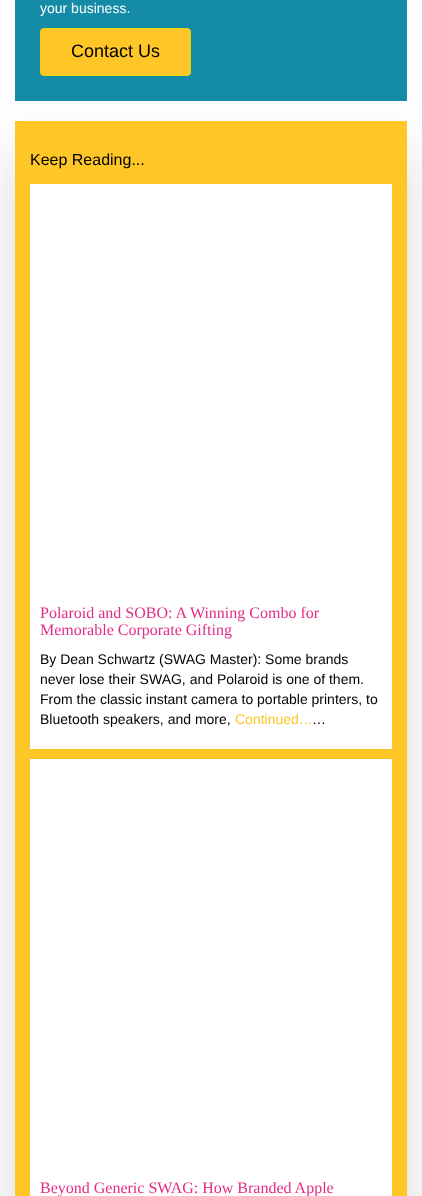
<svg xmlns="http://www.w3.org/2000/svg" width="422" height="1196">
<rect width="100%" height="100%" fill="#fff"/>
<rect x="15" y="151" width="392" height="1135" fill="#00000026" filter="blur(30px)"/>
<rect x="15" width="392" height="101" fill="#148ca8"/>
<text x="40" y="13" style="font-family:Liberation Sans;font-size:14px;fill:#fff">your business.</text>
<rect x="40.5" y="28.5" width="150" height="47" rx="3.5" fill="#ffc627" stroke="#e8d90a"/>
<text x="71" y="57" style="font-family:Liberation Sans;font-size:18px;fill:#000">Contact Us</text>
<rect x="15" y="121" width="392" height="1075" fill="#ffc627"/>
<text x="30" y="165" style="font-family:Liberation Sans;font-size:16px;fill:#000">Keep Reading...</text>
<rect x="30" y="184" width="362" height="565" fill="#fff"/>
<text x="40" y="618" style="font-family:Liberation Serif;font-size:16px;fill:#e32c87">Polaroid and SOBO: A Winning Combo for</text>
<text x="40" y="635" style="font-family:Liberation Serif;font-size:16px;fill:#e32c87">Memorable Corporate Gifting</text>
<text x="40" y="664" style="font-family:Liberation Sans;font-size:14px;fill:#000">By Dean Schwartz (SWAG Master): Some brands</text>
<text x="40" y="684" style="font-family:Liberation Sans;font-size:14px;fill:#000">never lose their SWAG, and Polaroid is one of them.</text>
<text x="40" y="704" style="font-family:Liberation Sans;font-size:14px;fill:#000">From the classic instant camera to portable printers, to</text>
<text x="40" y="724" style="font-family:Liberation Sans;font-size:14px;fill:#000">Bluetooth speakers, and more,</text>
<text x="235" y="724" style="font-family:Liberation Sans;font-size:14px;fill:#ffc627">Continued…</text>
<text x="312" y="724" style="font-family:Liberation Sans;font-size:14px;fill:#000">…</text>
<rect x="30" y="759" width="362" height="437" fill="#fff"/>
<text x="40" y="1193" style="font-family:Liberation Serif;font-size:16px;fill:#e32c87">Beyond Generic SWAG: How Branded Apple</text>
</svg>
